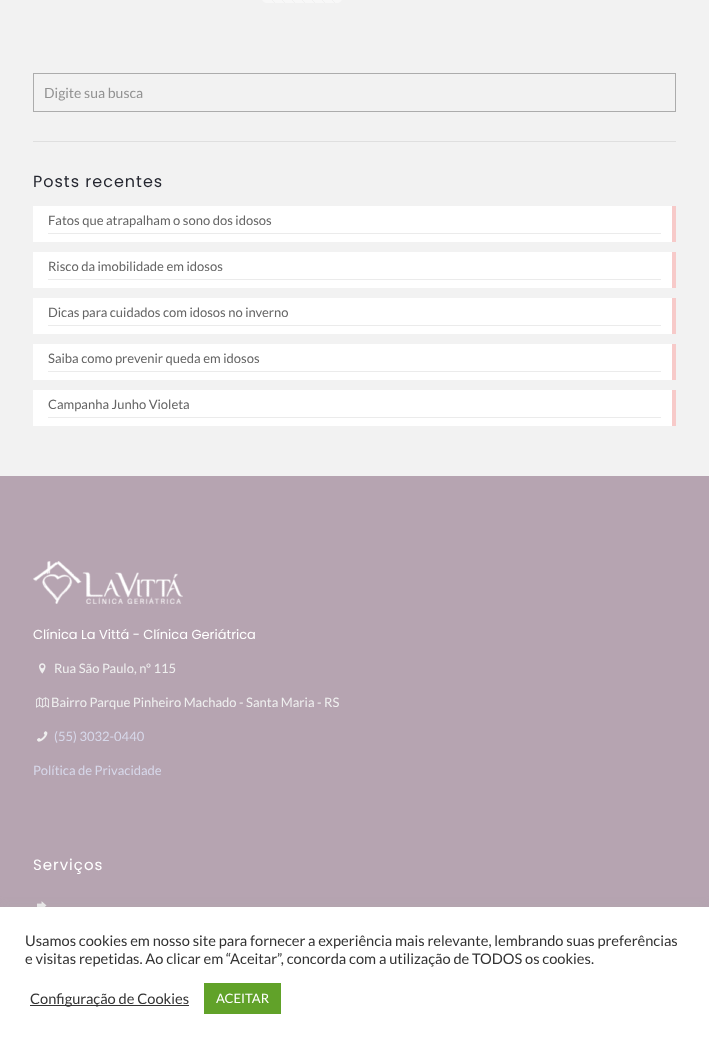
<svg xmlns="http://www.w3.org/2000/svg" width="709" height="1044">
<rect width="100%" height="100%" fill="#f2f2f2"/>
<rect x="262" y="-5" width="80" height="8" rx="5" fill="#f8f8f8"/>
<image x="272" y="0" width="63" height="3" href="media/1.png"/>
<rect x="33.5" y="73.5" width="642" height="38" fill="none" stroke="#acacac"/>
<text x="44" y="98" style="font-family:Lato;font-size:14px;fill:#929292">Digite sua busca</text>
<rect x="33" y="141" width="643" height="1" fill="#dfdfdf"/>
<text x="33" y="187" style="font-family:Poppins;font-size:16px;letter-spacing:1px;fill:#252730">Posts recentes</text>
<rect x="33" y="206" width="639" height="36" fill="#fff"/>
<rect x="48" y="233" width="613" height="1" fill="#ebebeb"/>
<text x="48" y="225" style="font-family:Lato;font-size:13px;fill:#656565">Fatos que atrapalham o sono dos idosos</text>
<rect x="672" y="206" width="4" height="36" fill="#f7cac9"/>
<rect x="33" y="252" width="639" height="36" fill="#fff"/>
<rect x="48" y="279" width="613" height="1" fill="#ebebeb"/>
<text x="48" y="271" style="font-family:Lato;font-size:13px;fill:#656565">Risco da imobilidade em idosos</text>
<rect x="672" y="252" width="4" height="36" fill="#f7cac9"/>
<rect x="33" y="298" width="639" height="36" fill="#fff"/>
<rect x="48" y="325" width="613" height="1" fill="#ebebeb"/>
<text x="48" y="317" style="font-family:Lato;font-size:13px;fill:#656565">Dicas para cuidados com idosos no inverno</text>
<rect x="672" y="298" width="4" height="36" fill="#f7cac9"/>
<rect x="33" y="344" width="639" height="36" fill="#fff"/>
<rect x="48" y="371" width="613" height="1" fill="#ebebeb"/>
<text x="48" y="363" style="font-family:Lato;font-size:13px;fill:#656565">Saiba como prevenir queda em idosos</text>
<rect x="672" y="344" width="4" height="36" fill="#f7cac9"/>
<rect x="33" y="390" width="639" height="36" fill="#fff"/>
<rect x="48" y="417" width="613" height="1" fill="#ebebeb"/>
<text x="48" y="409" style="font-family:Lato;font-size:13px;fill:#656565">Campanha Junho Violeta</text>
<rect x="672" y="390" width="4" height="36" fill="#f7cac9"/>
<rect y="476" width="709" height="431" fill="#b6a4b1"/>
<image x="33" y="561" width="150" height="43" href="media/2.png"/>
<text x="33" y="639" style="font-family:Poppins;font-size:13px;fill:#fff">Clínica La Vittá - Clínica Geriátrica</text>
<image x="39" y="663" width="7" height="11" href="media/3.png"/>
<text x="54" y="673" style="font-family:Lato;font-size:13px;fill:#efefef">Rua São Paulo, nº 115</text>
<image x="36" y="697" width="13" height="11" href="media/4.png"/>
<text x="51" y="707" style="font-family:Lato;font-size:13px;fill:#efefef">Bairro Parque Pinheiro Machado - Santa Maria - RS</text>
<image x="37" y="731" width="11" height="11" href="media/5.png"/>
<text x="54" y="741" style="font-family:Lato;font-size:13px;fill:#d7d8ea">(55) 3032-0440</text>
<text x="33" y="775" style="font-family:Lato;font-size:13px;fill:#d7d8ea">Política de Privacidade</text>
<text x="33" y="870" style="font-family:Poppins;font-size:15px;letter-spacing:1px;fill:#fff">Serviços</text>
<image x="37" y="901" width="10" height="6" href="media/6.png"/>
<rect y="906" width="709" height="137" fill="#acabab4d" filter="blur(5px)"/>
<rect y="907" width="709" height="137" fill="#fff"/>
<text x="25" y="946" style="font-family:Lato;font-size:14.65px;fill:#333">Usamos cookies em nosso site para fornecer a experiência mais relevante, lembrando suas preferências</text>
<text x="25" y="964" style="font-family:Lato;font-size:14.65px;fill:#333">e visitas repetidas. Ao clicar em “Aceitar”, concorda com a utilização de TODOS os cookies.</text>
<rect x="30" y="1005" width="159" height="1" fill="#333"/>
<text x="30" y="1004" style="font-family:Lato;font-size:14.65px;fill:#333">Configuração de Cookies</text>
<rect x="204" y="983" width="77" height="31" fill="#61a229"/>
<text x="216" y="1003" style="font-family:Lato;font-size:13px;fill:#fff">ACEITAR</text>
</svg>
